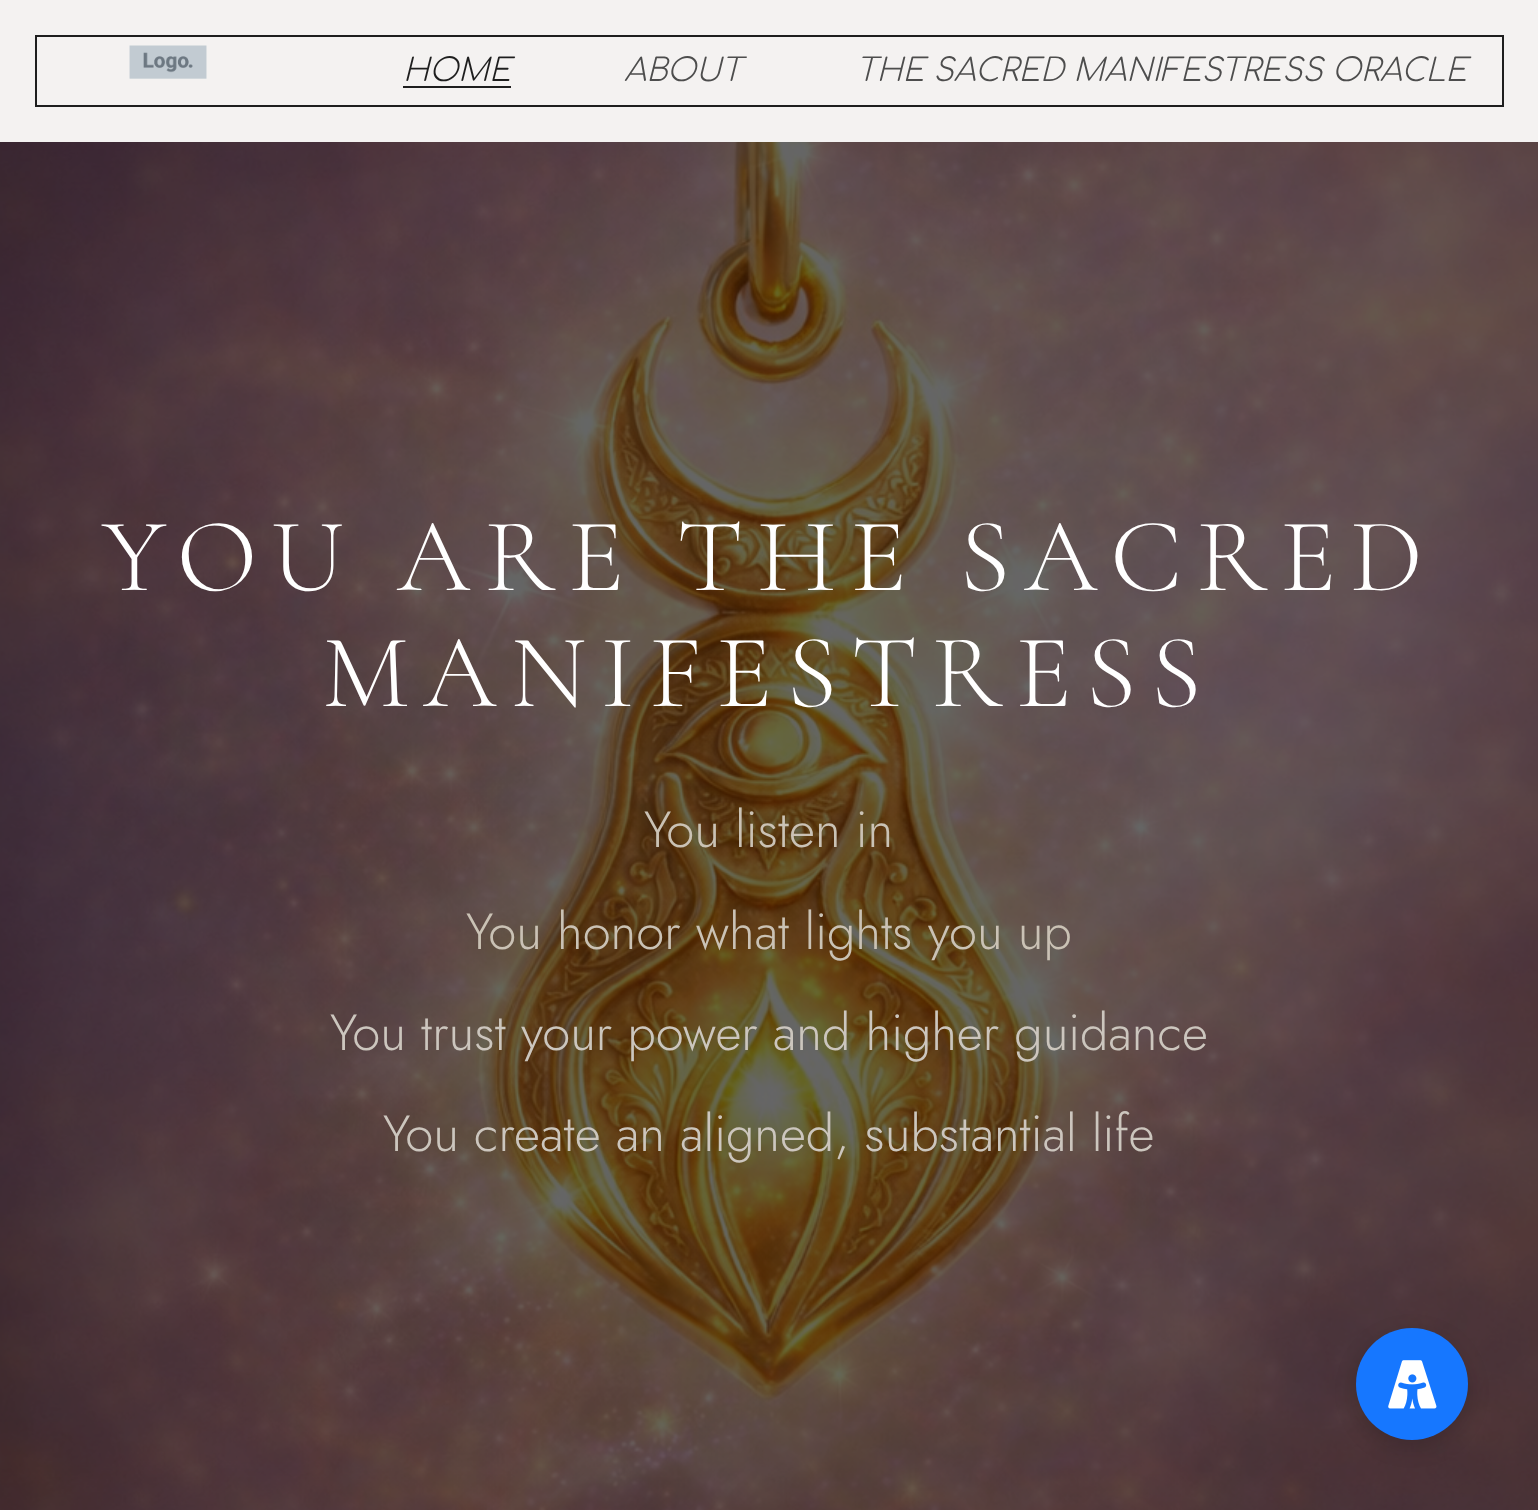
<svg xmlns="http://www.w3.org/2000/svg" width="1538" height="1510">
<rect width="100%" height="100%" fill="#fff"/>
<rect width="1538" height="142" fill="#f4f2f1"/>
<rect x="35" y="35" width="1468" height="2" fill="#1e1e1e"/>
<rect x="35" y="105" width="294" height="2" fill="#1e1e1e"/>
<rect x="35" y="35" width="2" height="72" fill="#1e1e1e"/>
<image x="129" y="45" width="78" height="34" href="media/1.png"/>
<rect x="1502" y="35" width="2" height="72" fill="#1e1e1e"/>
<rect x="329" y="105" width="1174" height="2" fill="#1e1e1e"/>
<text x="403" y="81" style="font-family:Comfortaa;font-size:31.5px;font-weight:300;font-style:italic;fill:#1e1e1e">HOME</text>
<rect x="403" y="86" width="108" height="2" fill="#1e1e1e"/>
<text x="624" y="81" style="font-family:Comfortaa;font-size:31.5px;font-weight:300;font-style:italic;fill:#4d4d4d">ABOUT</text>
<text x="856" y="81" style="font-family:Comfortaa;font-size:31.5px;font-weight:300;font-style:italic;fill:#4d4d4d">THE SACRED MANIFESTRESS ORACLE</text>
<image x="0" y="142" width="1538" height="1368" href="media/2.png"/>
<text x="102" y="590" style="font-family:Cormorant Garamond;font-size:105px;font-weight:300;letter-spacing:14px;fill:#fff">YOU ARE THE SACRED</text>
<text x="322" y="706" style="font-family:Cormorant Garamond;font-size:105px;font-weight:300;letter-spacing:14px;fill:#fff">MANIFESTRESS</text>
<text x="644" y="847" style="font-family:Jost;font-size:50.75px;font-weight:300;fill:#cac2b5">You listen in</text>
<text x="466" y="949" style="font-family:Jost;font-size:50.75px;font-weight:300;fill:#cac2b5">You honor what lights you up</text>
<text x="330" y="1050" style="font-family:Jost;font-size:50.75px;font-weight:300;fill:#ccc6be">You trust your power and higher guidance</text>
<text x="383" y="1151" style="font-family:Jost;font-size:50.75px;font-weight:300;fill:#ccc6be">You create an aligned, substantial life</text>
<rect x="1356" y="1335" width="112" height="112" rx="56" fill="#00000026" filter="blur(10.5px)"/>
<circle cx="1412" cy="1384" r="56" fill="#1677ff"/>
<image x="1388" y="1360" width="49" height="49" href="media/3.png"/>
</svg>
